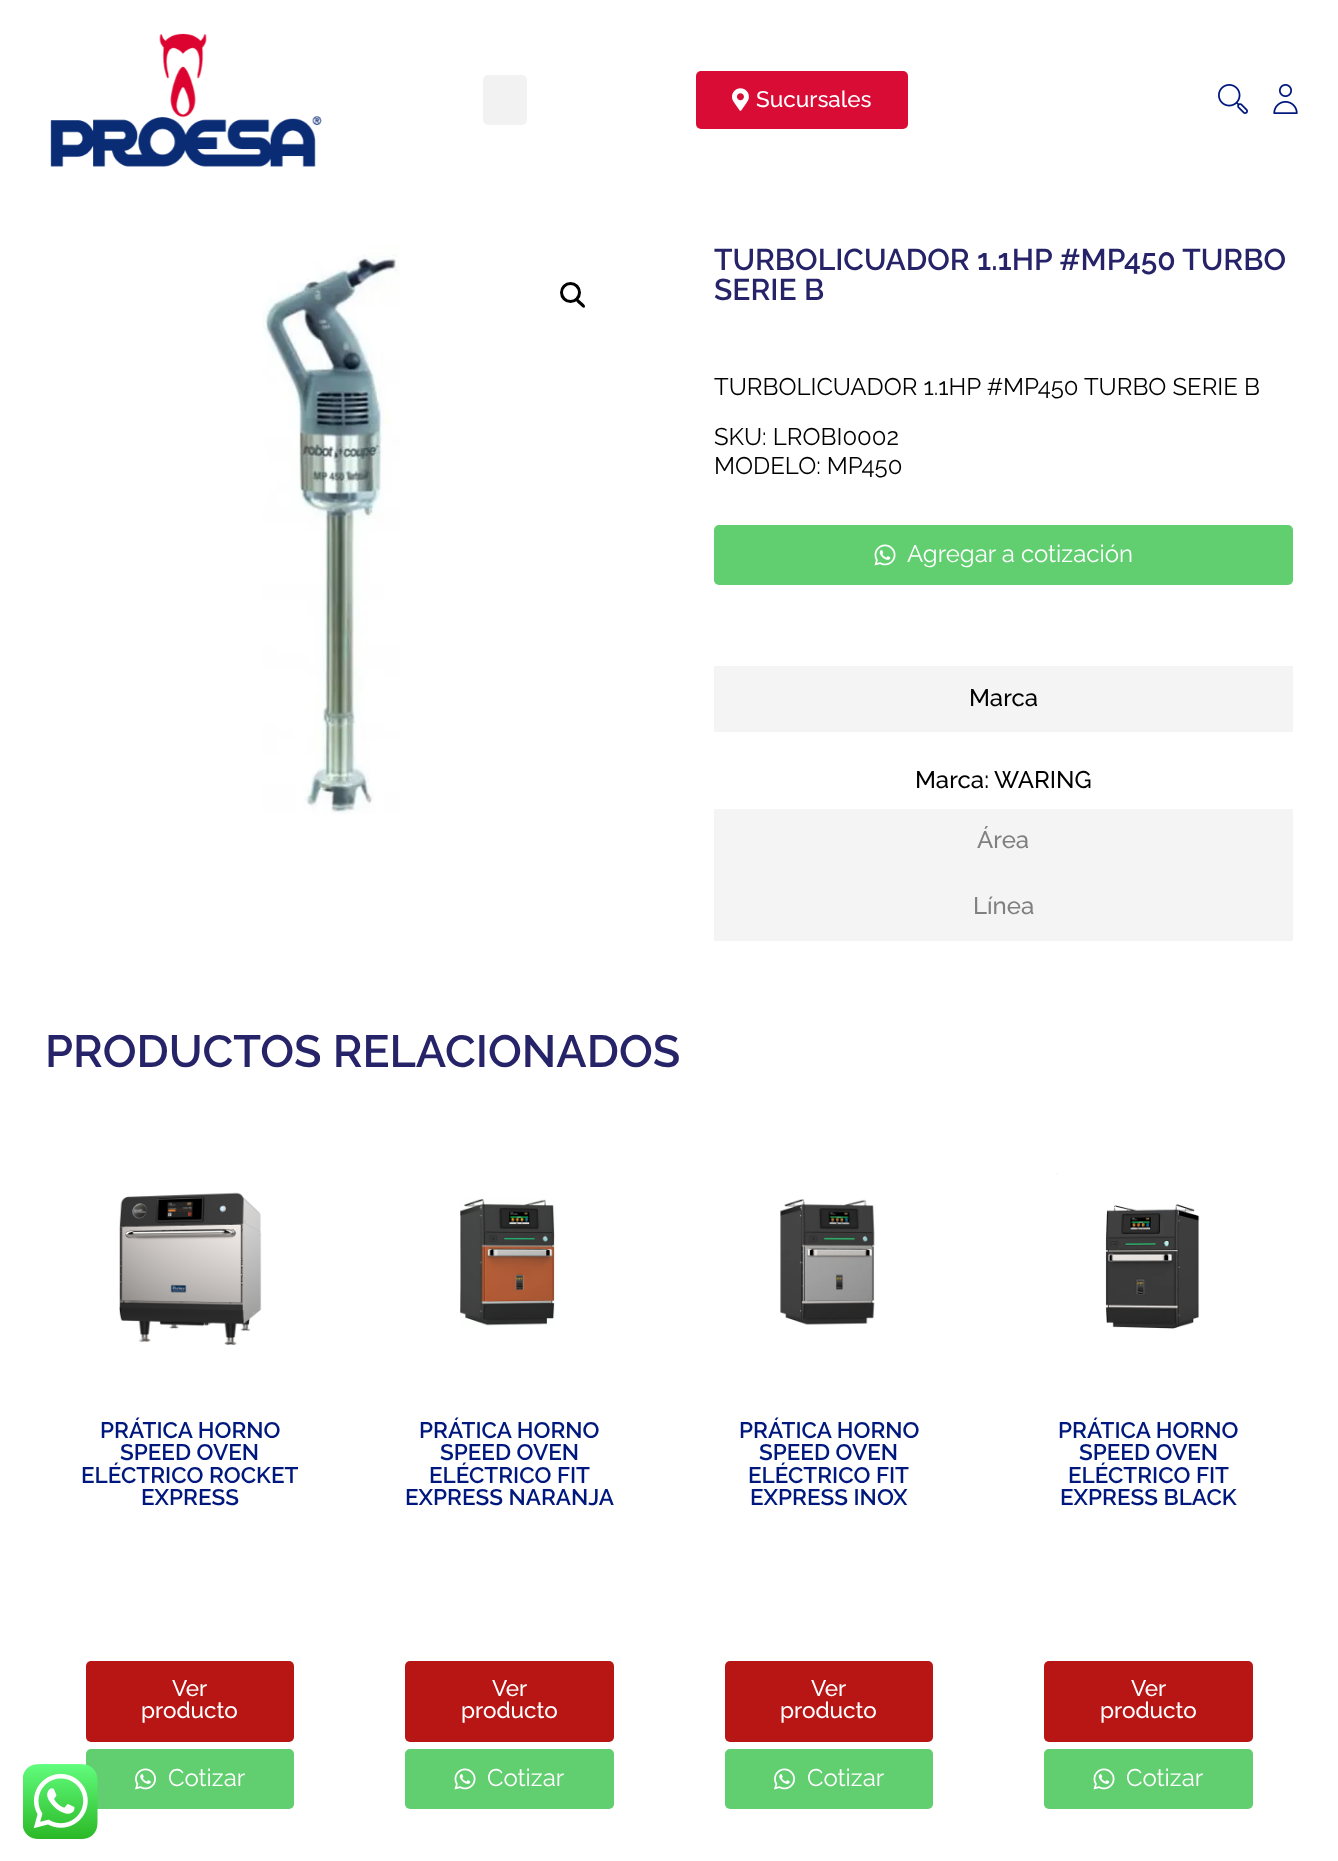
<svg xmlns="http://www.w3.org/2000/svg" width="1338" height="1861">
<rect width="100%" height="100%" fill="#fff"/>
<image x="50" y="33" width="272" height="134" href="media/1.png"/>
<rect x="483" y="75" width="44" height="50" rx="5" fill="#f2f2f2"/>
<rect x="696" y="71" width="212" height="58" rx="5" fill="#d90c36"/>
<image x="732" y="88" width="17" height="23" href="media/2.png"/>
<text x="756" y="107" style="font-family:Raleway;font-size:22.5px;font-weight:500;fill:#fff">Sucursales</text>
<image x="1218" y="84" width="30" height="30" href="media/3.png"/>
<image x="1273" y="84" width="25" height="30" href="media/4.png"/>
<image x="262" y="245" width="138" height="569" href="media/5.png"/>
<circle cx="570.5" cy="292.5" r="9" fill="none" stroke="#000" stroke-width="3"/>
<path d="M576.5 299c1.5-1.5 4 2 5 3c1 1 5 3.5 3 5.5c-1.5 1.5-4-2.5-5-3c-1-1-5-4-3-5.5z" fill="#000"/>
<text x="714" y="270" style="font-family:Raleway;font-size:30px;font-weight:600;fill:#262368">TURBOLICUADOR 1.1HP #MP450 TURBO</text>
<text x="714" y="300" style="font-family:Raleway;font-size:30px;font-weight:600;fill:#262368">SERIE B</text>
<text x="714" y="395" style="font-family:Raleway;font-size:24px;font-weight:100;fill:#000">TURBOLICUADOR 1.1HP #MP450 TURBO SERIE B</text>
<text x="714" y="445" style="font-family:Raleway;font-size:24px;font-weight:100;fill:#000">SKU: LROBI0002</text>
<text x="714" y="474" style="font-family:Raleway;font-size:24px;font-weight:100;fill:#000">MODELO: MP450</text>
<rect x="714" y="525" width="579" height="60" rx="5" fill="#61ce70"/>
<image x="874" y="544" width="22" height="22" href="media/6.png"/>
<text x="907" y="562" style="font-family:Raleway;font-size:24px;font-weight:100;fill:#fff">Agregar a cotización</text>
<rect x="714" y="666" width="579" height="66" fill="#f4f4f4"/>
<text x="969" y="706" style="font-family:Raleway;font-size:24px;font-weight:500;fill:#000">Marca</text>
<text x="915" y="788" style="font-family:Raleway;font-size:24px;font-weight:500;fill:#000">Marca:</text>
<text x="994" y="788" style="font-family:Raleway;font-size:24px;font-weight:500;fill:#000">WARING</text>
<rect x="714" y="809" width="579" height="132" fill="#f4f4f4"/>
<text x="977" y="848" style="font-family:Raleway;font-size:24px;font-weight:500;fill:#808080">Área</text>
<text x="973" y="914" style="font-family:Raleway;font-size:24px;font-weight:500;fill:#808080">Línea</text>
<text x="45" y="1067" style="font-family:Raleway;font-size:45px;font-weight:600;fill:#262368">PRODUCTOS RELACIONADOS</text>
<image x="119" y="1192" width="143" height="153" href="media/7.png"/>
<text x="100" y="1438" style="font-family:Raleway;font-size:22.5px;font-weight:600;fill:#00187d">PRÁTICA HORNO</text>
<text x="120" y="1460" style="font-family:Raleway;font-size:22.5px;font-weight:600;fill:#00187d">SPEED OVEN</text>
<text x="81" y="1483" style="font-family:Raleway;font-size:22.5px;font-weight:600;fill:#00187d">ELÉCTRICO ROCKET</text>
<text x="141" y="1505" style="font-family:Raleway;font-size:22.5px;font-weight:600;fill:#00187d">EXPRESS</text>
<rect x="86" y="1661" width="208" height="81" rx="5" fill="#b81515"/>
<text x="172" y="1696" style="font-family:Raleway;font-size:22.5px;font-weight:500;fill:#fff">Ver</text>
<text x="141" y="1718" style="font-family:Raleway;font-size:22.5px;font-weight:500;fill:#fff">producto</text>
<rect x="86" y="1749" width="208" height="60" rx="5" fill="#61ce70"/>
<image x="135" y="1768" width="21" height="22" href="media/8.png"/>
<text x="168" y="1786" style="font-family:Raleway;font-size:24px;font-weight:100;fill:#fff">Cotizar</text>
<image x="460" y="1198" width="96" height="128" href="media/9.png"/>
<text x="419" y="1438" style="font-family:Raleway;font-size:22.5px;font-weight:600;fill:#00187d">PRÁTICA HORNO</text>
<text x="440" y="1460" style="font-family:Raleway;font-size:22.5px;font-weight:600;fill:#00187d">SPEED OVEN</text>
<text x="429" y="1483" style="font-family:Raleway;font-size:22.5px;font-weight:600;fill:#00187d">ELÉCTRICO FIT</text>
<text x="405" y="1505" style="font-family:Raleway;font-size:22.5px;font-weight:600;fill:#00187d">EXPRESS NARANJA</text>
<rect x="405" y="1661" width="209" height="81" rx="5" fill="#b81515"/>
<text x="492" y="1696" style="font-family:Raleway;font-size:22.5px;font-weight:500;fill:#fff">Ver</text>
<text x="461" y="1718" style="font-family:Raleway;font-size:22.5px;font-weight:500;fill:#fff">producto</text>
<rect x="405" y="1749" width="209" height="60" rx="5" fill="#61ce70"/>
<image x="454" y="1768" width="22" height="22" href="media/6.png"/>
<text x="487" y="1786" style="font-family:Raleway;font-size:24px;font-weight:100;fill:#fff">Cotizar</text>
<image x="780" y="1199" width="95" height="126" href="media/10.png"/>
<text x="739" y="1438" style="font-family:Raleway;font-size:22.5px;font-weight:600;fill:#00187d">PRÁTICA HORNO</text>
<text x="759" y="1460" style="font-family:Raleway;font-size:22.5px;font-weight:600;fill:#00187d">SPEED OVEN</text>
<text x="748" y="1483" style="font-family:Raleway;font-size:22.5px;font-weight:600;fill:#00187d">ELÉCTRICO FIT</text>
<text x="750" y="1505" style="font-family:Raleway;font-size:22.5px;font-weight:600;fill:#00187d">EXPRESS INOX</text>
<rect x="725" y="1661" width="208" height="81" rx="5" fill="#b81515"/>
<text x="811" y="1696" style="font-family:Raleway;font-size:22.5px;font-weight:500;fill:#fff">Ver</text>
<text x="780" y="1718" style="font-family:Raleway;font-size:22.5px;font-weight:500;fill:#fff">producto</text>
<rect x="725" y="1749" width="208" height="60" rx="5" fill="#61ce70"/>
<image x="774" y="1768" width="21" height="22" href="media/8.png"/>
<text x="807" y="1786" style="font-family:Raleway;font-size:24px;font-weight:100;fill:#fff">Cotizar</text>
<image x="1056" y="1173" width="144" height="156" href="media/11.png"/>
<text x="1058" y="1438" style="font-family:Raleway;font-size:22.5px;font-weight:600;fill:#00187d">PRÁTICA HORNO</text>
<text x="1079" y="1460" style="font-family:Raleway;font-size:22.5px;font-weight:600;fill:#00187d">SPEED OVEN</text>
<text x="1068" y="1483" style="font-family:Raleway;font-size:22.5px;font-weight:600;fill:#00187d">ELÉCTRICO FIT</text>
<text x="1060" y="1505" style="font-family:Raleway;font-size:22.5px;font-weight:600;fill:#00187d">EXPRESS BLACK</text>
<rect x="1044" y="1661" width="209" height="81" rx="5" fill="#b81515"/>
<text x="1131" y="1696" style="font-family:Raleway;font-size:22.5px;font-weight:500;fill:#fff">Ver</text>
<text x="1100" y="1718" style="font-family:Raleway;font-size:22.5px;font-weight:500;fill:#fff">producto</text>
<rect x="1044" y="1749" width="209" height="60" rx="5" fill="#61ce70"/>
<image x="1093" y="1768" width="22" height="22" href="media/6.png"/>
<text x="1126" y="1786" style="font-family:Raleway;font-size:24px;font-weight:100;fill:#fff">Cotizar</text>
<image x="23" y="1764" width="75" height="75" href="media/12.png"/>
</svg>
